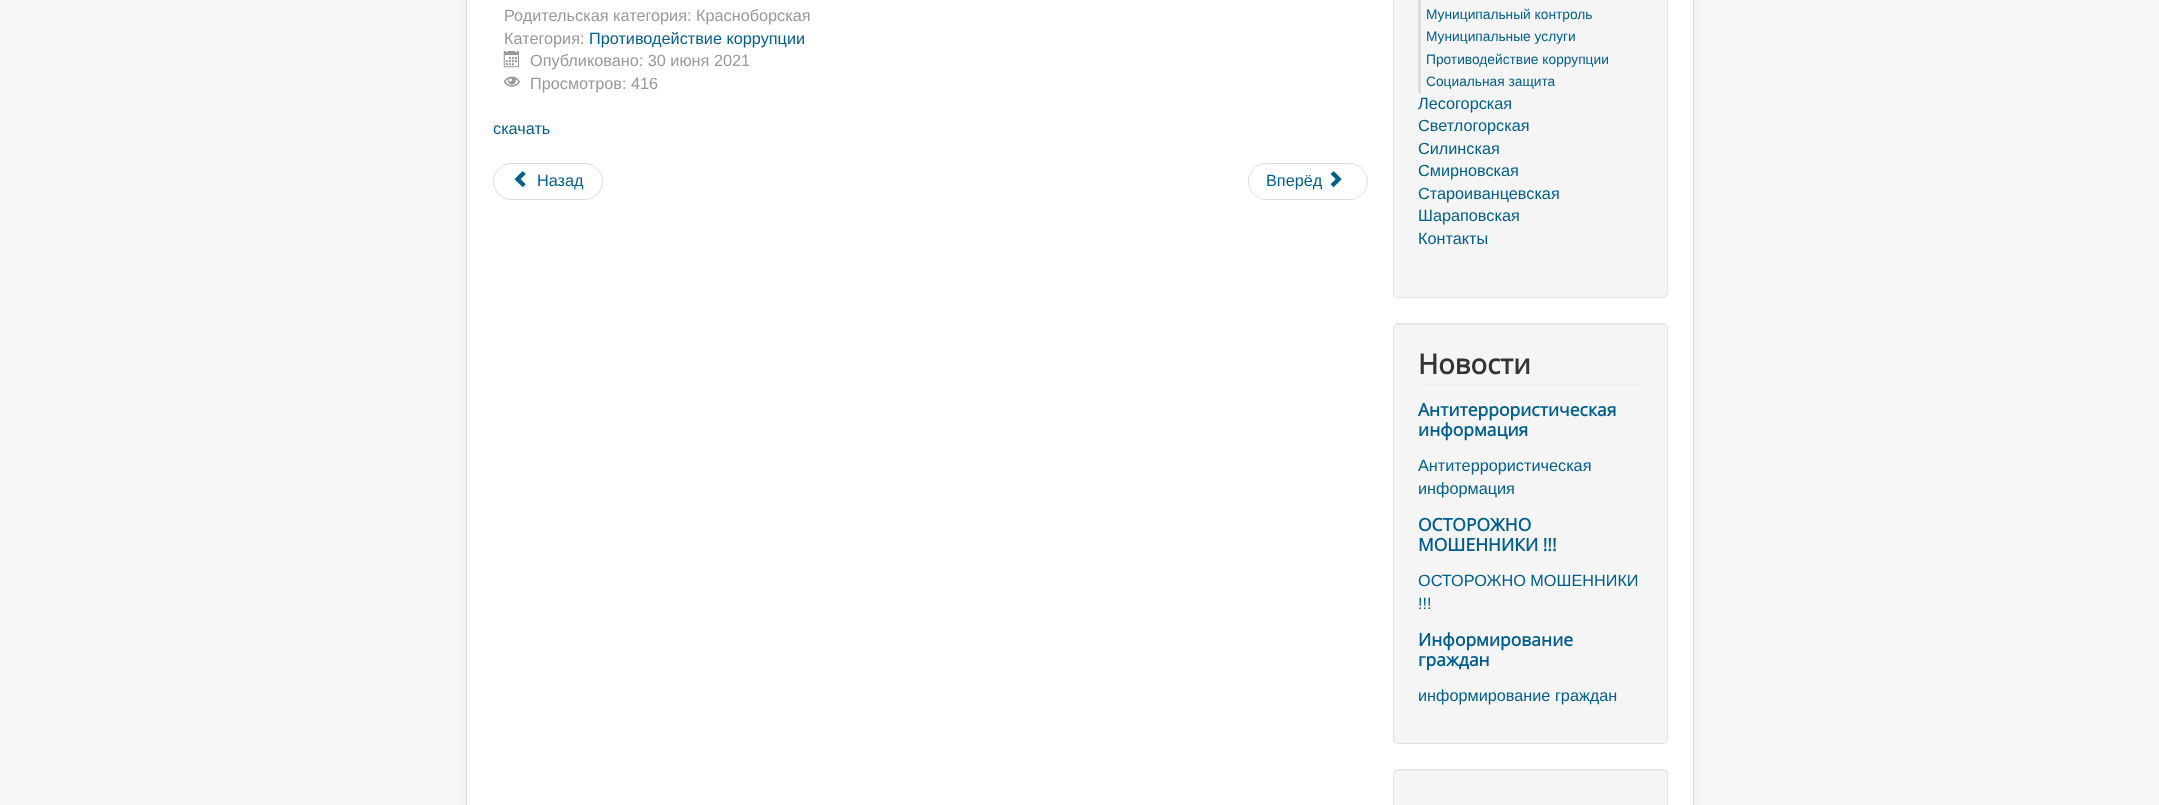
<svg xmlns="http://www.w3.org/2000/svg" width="2159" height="805">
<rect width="100%" height="100%" fill="#f4f6f7"/>
<rect x="466" y="-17" width="1228" height="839" rx="5" fill="#0000000d" filter="blur(4px)"/>
<rect x="466.5" y="-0.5" width="1227" height="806" fill="#fff" stroke="#d9d9d9"/>
<text x="504" y="21" style="font-family:Liberation Sans;font-size:16.25px;fill:#999">Родительская категория: Красноборская</text>
<text x="504" y="44" style="font-family:Liberation Sans;font-size:16.25px;fill:#999">Категория:</text>
<text x="589" y="44" style="font-family:Liberation Sans;font-size:16.25px;fill:#005e8d">Противодействие коррупции</text>
<image x="503" y="51" width="16" height="17" href="media/1.png"/>
<text x="530" y="66" style="font-family:Liberation Sans;font-size:16.25px;fill:#999">Опубликовано: 30 июня 2021</text>
<image x="503" y="76" width="17" height="11" href="media/2.png"/>
<text x="530" y="89" style="font-family:Liberation Sans;font-size:16.25px;fill:#999">Просмотров: 416</text>
<text x="493" y="134" style="font-family:Liberation Sans;font-size:16.25px;fill:#005e8d">скачать</text>
<rect x="493.5" y="163.5" width="109" height="36" rx="18" fill="none" stroke="#ddd"/>
<image x="514" y="171" width="12" height="17" href="media/3.png"/>
<text x="537" y="186" style="font-family:Liberation Sans;font-size:16.25px;fill:#005e8d">Назад</text>
<rect x="1248.5" y="163.5" width="119" height="36" rx="18" fill="none" stroke="#ddd"/>
<text x="1266" y="186" style="font-family:Liberation Sans;font-size:16.25px;fill:#005e8d">Вперёд</text>
<image x="1330" y="171" width="12" height="17" href="media/4.png"/>
<rect x="1393.5" y="-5.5" width="274" height="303" rx="4.5" fill="#f5f5f5" stroke="#e3e3e3"/>
<rect x="1418" width="3" height="93" fill="#ddd"/>
<text x="1426" y="19" style="font-family:Liberation Sans;font-size:13.75px;fill:#005e8d">Муниципальный контроль</text>
<text x="1426" y="41" style="font-family:Liberation Sans;font-size:13.75px;fill:#005e8d">Муниципальные услуги</text>
<text x="1426" y="64" style="font-family:Liberation Sans;font-size:13.75px;fill:#005e8d">Противодействие коррупции</text>
<text x="1426" y="86" style="font-family:Liberation Sans;font-size:13.75px;fill:#005e8d">Социальная защита</text>
<text x="1418" y="109" style="font-family:Liberation Sans;font-size:16.25px;fill:#005e8d">Лесогорская</text>
<text x="1418" y="131" style="font-family:Liberation Sans;font-size:16.25px;fill:#005e8d">Светлогорская</text>
<text x="1418" y="154" style="font-family:Liberation Sans;font-size:16.25px;fill:#005e8d">Силинская</text>
<text x="1418" y="176" style="font-family:Liberation Sans;font-size:16.25px;fill:#005e8d">Смирновская</text>
<text x="1418" y="199" style="font-family:Liberation Sans;font-size:16.25px;fill:#005e8d">Староиванцевская</text>
<text x="1418" y="221" style="font-family:Liberation Sans;font-size:16.25px;fill:#005e8d">Шараповская</text>
<text x="1418" y="244" style="font-family:Liberation Sans;font-size:16.25px;fill:#005e8d">Контакты</text>
<rect x="1393" y="323" width="275" height="421" rx="5" fill="#f5f5f5"/>
<path d="M1398 325h264c3 0 4 2 4 4c0-3-1-5-4-5h-264c-3 0-4 2-4 5c0-2 1-4 4-4z" fill="#e9e9e9"/>
<rect x="1393.5" y="323.5" width="274" height="420" rx="4.5" fill="none" stroke="#e3e3e3"/>
<rect x="1418" y="384" width="225" height="1" fill="#eee"/>
<text x="1418" y="374" style="font-family:Open Sans;font-size:27.5px;font-weight:bold;fill:#333">Новости</text>
<text x="1418" y="416" style="font-family:Open Sans;font-size:17.5px;font-weight:bold;fill:#005e8d">Антитеррористическая</text>
<text x="1418" y="436" style="font-family:Open Sans;font-size:17.5px;font-weight:bold;fill:#005e8d">информация</text>
<text x="1418" y="471" style="font-family:Liberation Sans;font-size:16.25px;fill:#005e8d">Антитеррористическая</text>
<text x="1418" y="494" style="font-family:Liberation Sans;font-size:16.25px;fill:#005e8d">информация</text>
<text x="1418" y="531" style="font-family:Open Sans;font-size:17.5px;font-weight:bold;fill:#005e8d">ОСТОРОЖНО</text>
<text x="1418" y="551" style="font-family:Open Sans;font-size:17.5px;font-weight:bold;fill:#005e8d">МОШЕННИКИ !!!</text>
<text x="1418" y="586" style="font-family:Liberation Sans;font-size:16.25px;fill:#005e8d">ОСТОРОЖНО МОШЕННИКИ</text>
<text x="1418" y="609" style="font-family:Liberation Sans;font-size:16.25px;fill:#005e8d">!!!</text>
<text x="1418" y="646" style="font-family:Open Sans;font-size:17.5px;font-weight:bold;fill:#005e8d">Информирование</text>
<text x="1418" y="666" style="font-family:Open Sans;font-size:17.5px;font-weight:bold;fill:#005e8d">граждан</text>
<text x="1418" y="701" style="font-family:Liberation Sans;font-size:16.25px;fill:#005e8d">информирование граждан</text>
<rect x="1393" y="769" width="275" height="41" rx="5" fill="#f5f5f5"/>
<path d="M1398 771h264c3 0 4 2 4 4c0-3-1-5-4-5h-264c-3 0-4 2-4 5c0-2 1-4 4-4z" fill="#e9e9e9"/>
<rect x="1393.5" y="769.5" width="274" height="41" rx="4.5" fill="none" stroke="#e3e3e3"/>
</svg>
